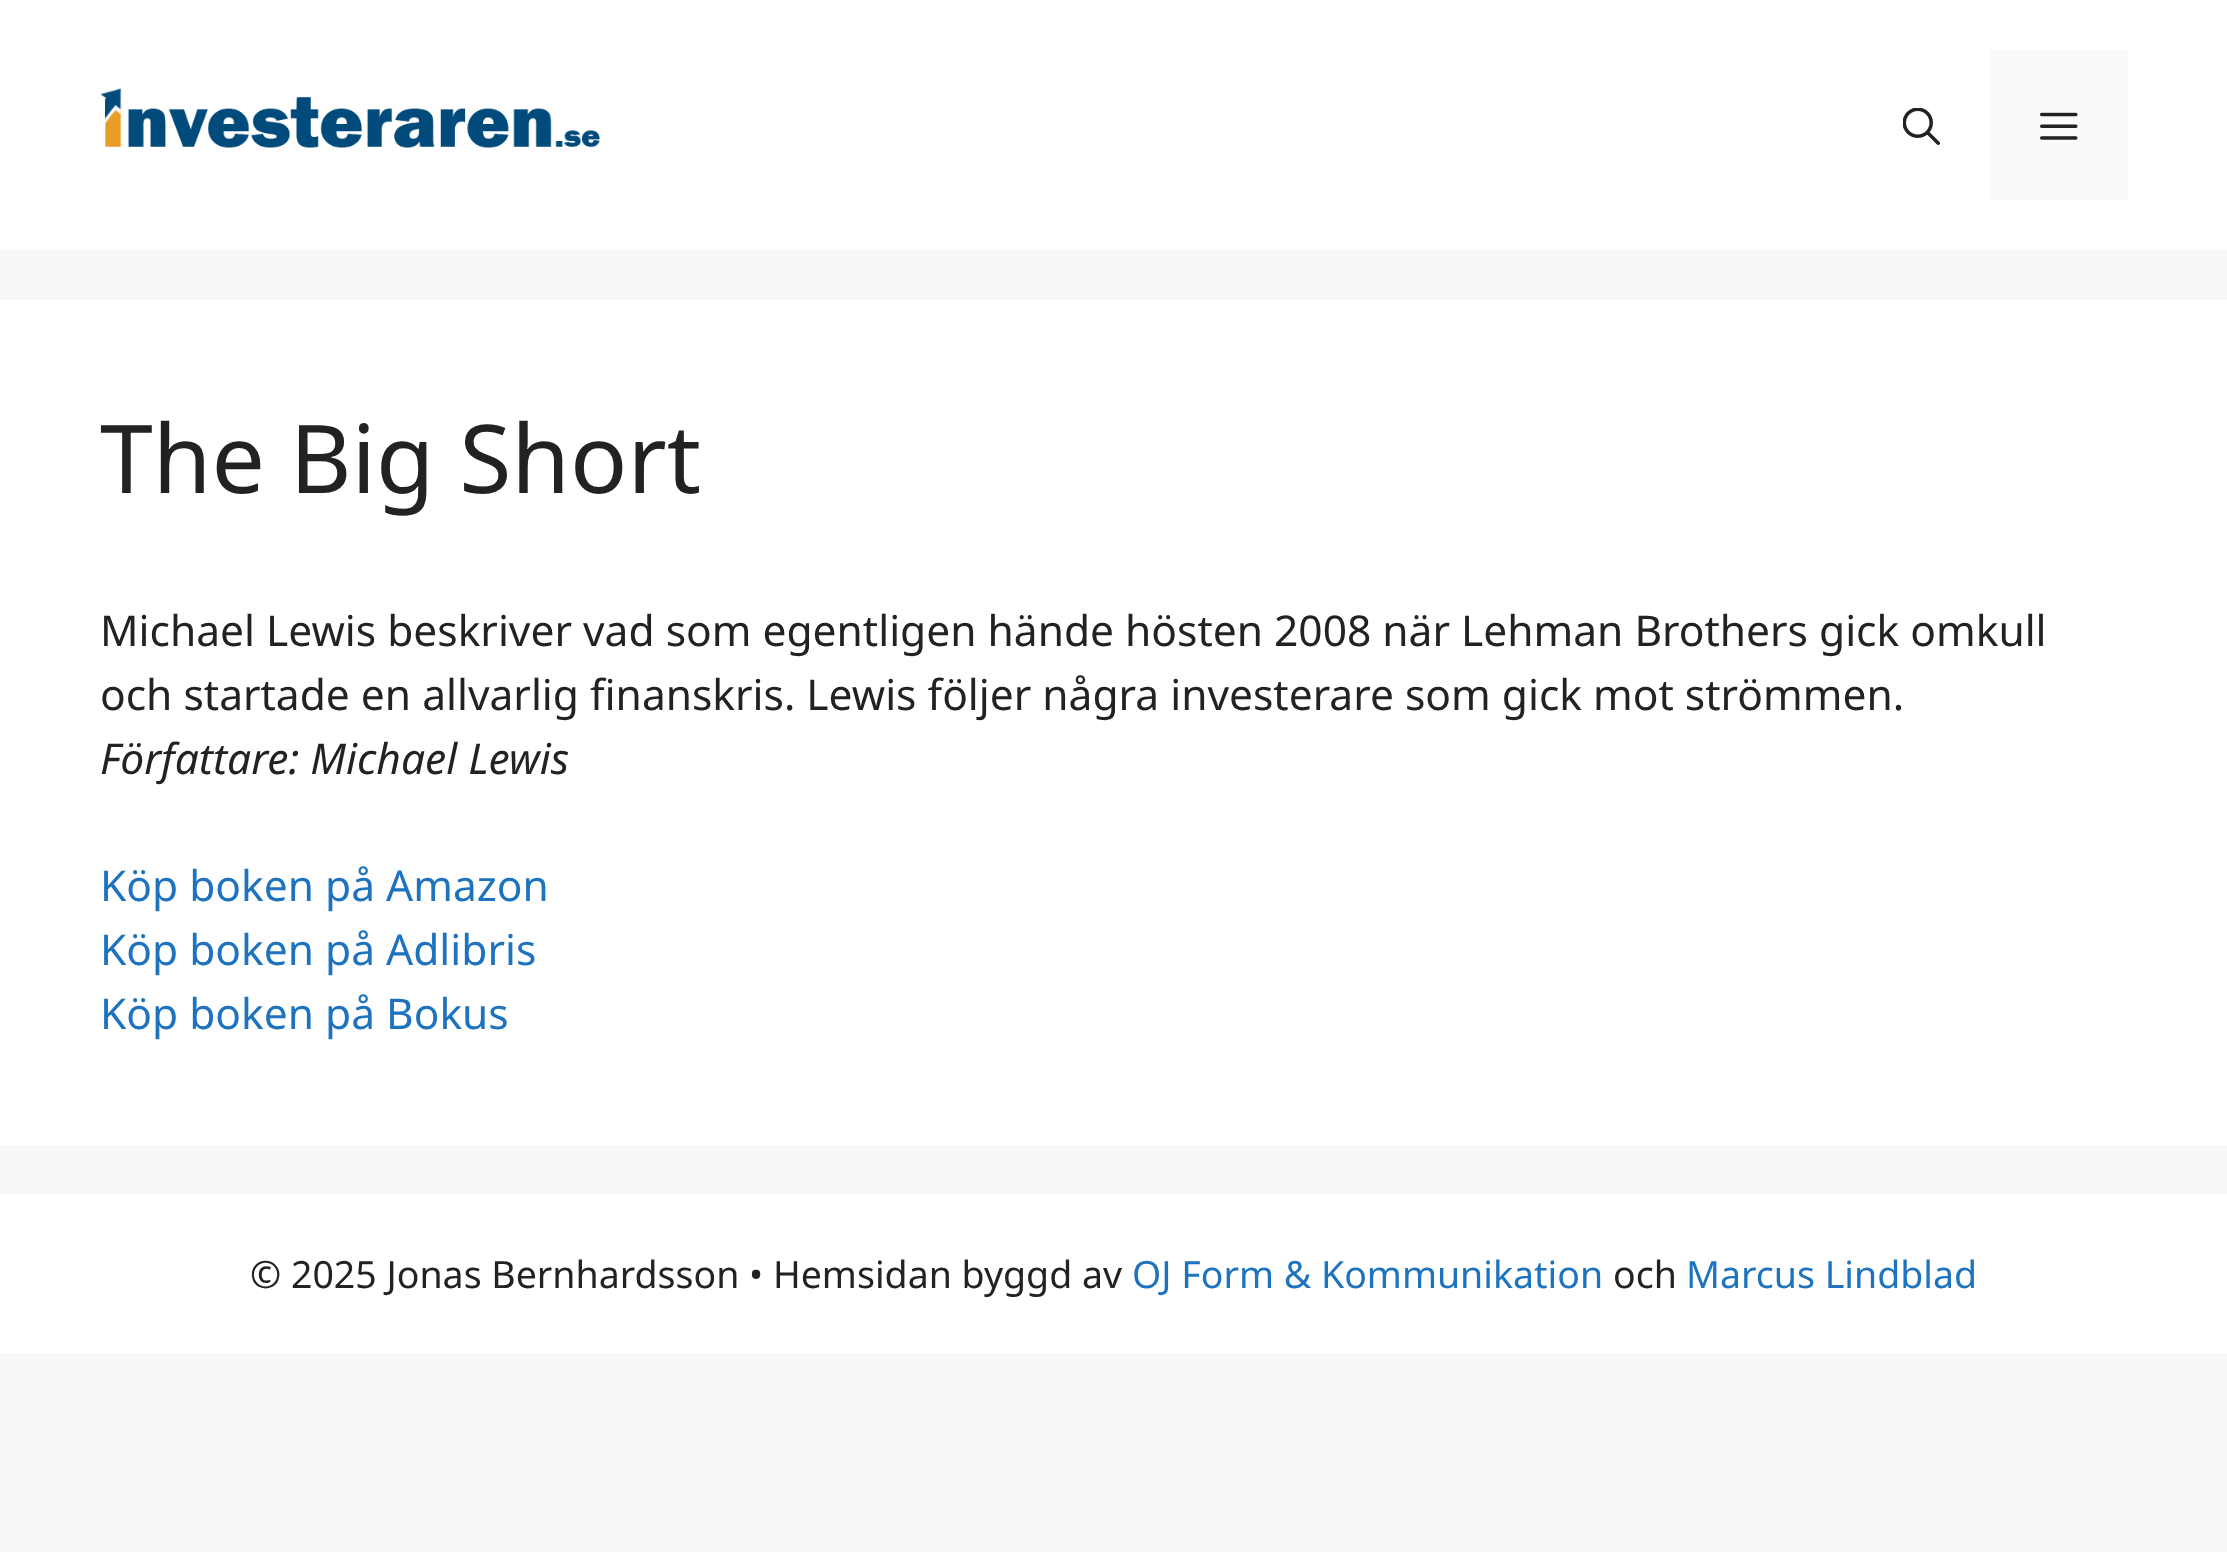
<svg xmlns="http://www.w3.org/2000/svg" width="2227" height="1552">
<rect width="100%" height="100%" fill="#f7f8f9"/>
<rect width="2227" height="250" fill="#fff"/>
<image x="100" y="88" width="500" height="60" href="media/1.png"/>
<image x="1903" y="108" width="37" height="37" href="media/2.png"/>
<rect x="1990" y="50" width="138" height="150" fill="#fafafa"/>
<image x="2040" y="112" width="38" height="28" href="media/3.png"/>
<rect y="300" width="2227" height="845" fill="#fff"/>
<text x="100" y="493" style="font-family:Noto Sans;font-size:95px;fill:#222">The Big Short</text>
<text x="100" y="646" style="font-family:Noto Sans;font-size:42.5px;fill:#222">Michael Lewis beskriver vad som egentligen hände hösten 2008 när Lehman Brothers gick omkull</text>
<text x="100" y="710" style="font-family:Noto Sans;font-size:42.5px;fill:#222">och startade en allvarlig finanskris. Lewis följer några investerare som gick mot strömmen.</text>
<text x="100" y="774" style="font-family:Noto Sans;font-size:42.5px;font-style:italic;fill:#222">Författare: Michael Lewis</text>
<text x="100" y="901" style="font-family:Noto Sans;font-size:42.5px;fill:#1e73be">Köp boken på Amazon</text>
<text x="100" y="965" style="font-family:Noto Sans;font-size:42.5px;fill:#1e73be">Köp boken på Adlibris</text>
<text x="100" y="1029" style="font-family:Noto Sans;font-size:42.5px;fill:#1e73be">Köp boken på Bokus</text>
<rect y="1195" width="2227" height="158" fill="#fff"/>
<text x="250" y="1288" style="font-family:Noto Sans;font-size:37.5px;fill:#222">© 2025 Jonas Bernhardsson • Hemsidan byggd av</text>
<text x="1132" y="1288" style="font-family:Noto Sans;font-size:37.5px;fill:#1e73be">OJ Form &amp; Kommunikation</text>
<text x="1613" y="1288" style="font-family:Noto Sans;font-size:37.5px;fill:#222">och</text>
<text x="1686" y="1288" style="font-family:Noto Sans;font-size:37.5px;fill:#1e73be">Marcus Lindblad</text>
</svg>
